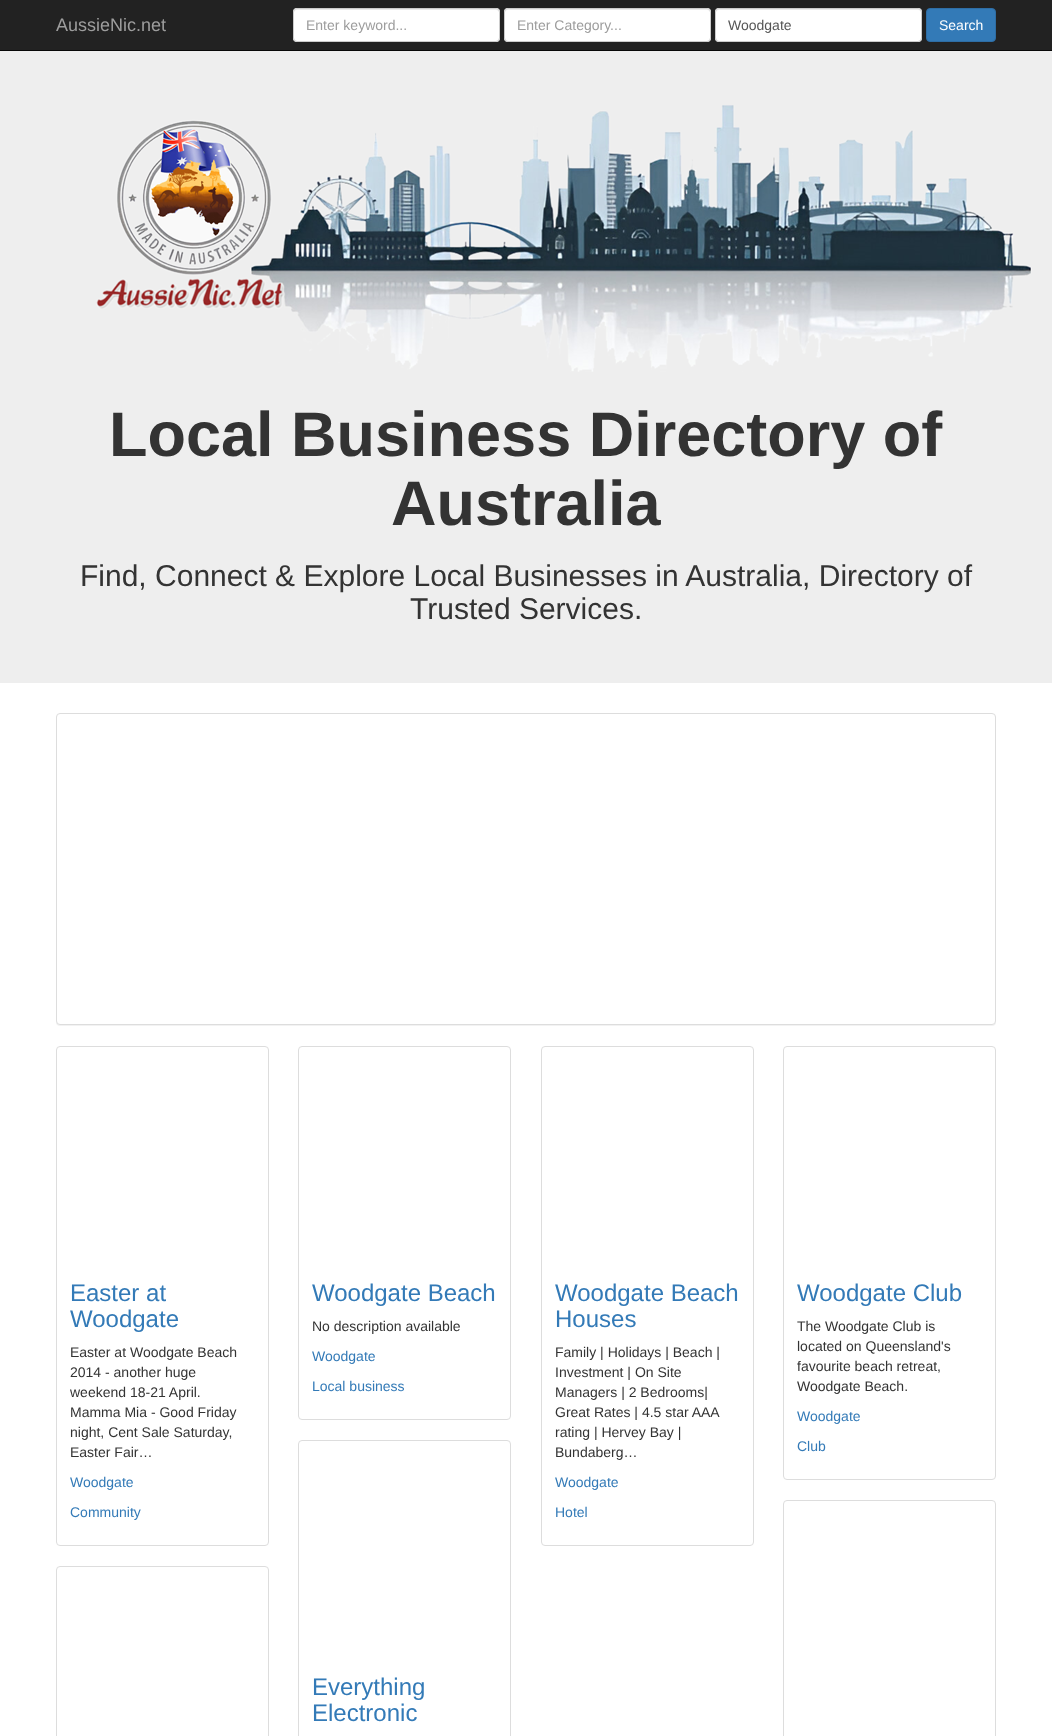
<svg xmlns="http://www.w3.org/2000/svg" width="1052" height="1736">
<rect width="100%" height="100%" fill="#fff"/>
<rect width="1052" height="50" fill="#222"/>
<rect y="50" width="1052" height="1" fill="#080808"/>
<text x="56" y="31" style="font-family:Liberation Sans;font-size:18px;fill:#9d9d9d">AussieNic.net</text>
<rect x="293" y="8" width="207" height="34" rx="4" fill="#fff"/>
<path d="M297 10h199c2 0 3 1 3 3c0-2-1-4-3-4h-199c-2 0-3 2-3 4c0-2 1-3 3-3z" fill="#ececec"/>
<rect x="293.5" y="8.5" width="206" height="33" rx="3.5" fill="none" stroke="#ccc"/>
<text x="306" y="30" style="font-family:Liberation Sans;font-size:14px;fill:#9d9d9d">Enter keyword...</text>
<rect x="504" y="8" width="207" height="34" rx="4" fill="#fff"/>
<path d="M508 10h199c2 0 3 1 3 3c0-2-1-4-3-4h-199c-2 0-3 2-3 4c0-2 1-3 3-3z" fill="#ececec"/>
<rect x="504.5" y="8.5" width="206" height="33" rx="3.5" fill="none" stroke="#ccc"/>
<text x="517" y="30" style="font-family:Liberation Sans;font-size:14px;fill:#9d9d9d">Enter Category...</text>
<rect x="715" y="8" width="207" height="34" rx="4" fill="#fff"/>
<path d="M719 10h199c2 0 3 1 3 3c0-2-1-4-3-4h-199c-2 0-3 2-3 4c0-2 1-3 3-3z" fill="#ececec"/>
<rect x="715.5" y="8.5" width="206" height="33" rx="3.5" fill="none" stroke="#ccc"/>
<text x="728" y="30" style="font-family:Liberation Sans;font-size:14px;fill:#555">Woodgate</text>
<rect x="926.5" y="8.5" width="69" height="33" rx="3.5" fill="#337ab7" stroke="#2e6da4"/>
<text x="939" y="30" style="font-family:Liberation Sans;font-size:14px;fill:#fff">Search</text>
<rect y="51" width="1052" height="632" fill="#eee"/>
<image x="96" y="105" width="936" height="267" href="media/1.png"/>
<text x="109" y="456" style="font-family:Liberation Sans;font-size:63px;font-weight:bold;fill:#333">Local Business Directory of</text>
<text x="391" y="525" style="font-family:Liberation Sans;font-size:63px;font-weight:bold;fill:#333">Australia</text>
<text x="80" y="586" style="font-family:Liberation Sans;font-size:30px;fill:#333">Find, Connect &amp; Explore Local Businesses in Australia, Directory of</text>
<text x="410" y="619" style="font-family:Liberation Sans;font-size:30px;fill:#333">Trusted Services.</text>
<rect x="56" y="714" width="940" height="312" rx="4" fill="#0000000d" filter="blur(0.5px)"/>
<rect x="56.5" y="713.5" width="939" height="311" rx="3.5" fill="#fff" stroke="#ddd"/>
<rect x="56.5" y="1046.5" width="212" height="499" rx="3.5" fill="none" stroke="#ddd"/>
<text x="70" y="1301" style="font-family:Liberation Sans;font-size:24px;fill:#337ab7">Easter at</text>
<text x="70" y="1327" style="font-family:Liberation Sans;font-size:24px;fill:#337ab7">Woodgate</text>
<text x="70" y="1357" style="font-family:Liberation Sans;font-size:14px;fill:#333">Easter at Woodgate Beach</text>
<text x="70" y="1377" style="font-family:Liberation Sans;font-size:14px;fill:#333">2014 - another huge</text>
<text x="70" y="1397" style="font-family:Liberation Sans;font-size:14px;fill:#333">weekend 18-21 April.</text>
<text x="70" y="1417" style="font-family:Liberation Sans;font-size:14px;fill:#333">Mamma Mia - Good Friday</text>
<text x="70" y="1437" style="font-family:Liberation Sans;font-size:14px;fill:#333">night, Cent Sale Saturday,</text>
<text x="70" y="1457" style="font-family:Liberation Sans;font-size:14px;fill:#333">Easter Fair…</text>
<text x="70" y="1487" style="font-family:Liberation Sans;font-size:14px;fill:#337ab7">Woodgate</text>
<text x="70" y="1517" style="font-family:Liberation Sans;font-size:14px;fill:#337ab7">Community</text>
<rect x="298.5" y="1046.5" width="212" height="373" rx="3.5" fill="none" stroke="#ddd"/>
<text x="312" y="1301" style="font-family:Liberation Sans;font-size:24px;fill:#337ab7">Woodgate Beach</text>
<text x="312" y="1331" style="font-family:Liberation Sans;font-size:14px;fill:#333">No description available</text>
<text x="312" y="1361" style="font-family:Liberation Sans;font-size:14px;fill:#337ab7">Woodgate</text>
<text x="312" y="1391" style="font-family:Liberation Sans;font-size:14px;fill:#337ab7">Local business</text>
<rect x="541.5" y="1046.5" width="212" height="499" rx="3.5" fill="none" stroke="#ddd"/>
<text x="555" y="1301" style="font-family:Liberation Sans;font-size:24px;fill:#337ab7">Woodgate Beach</text>
<text x="555" y="1327" style="font-family:Liberation Sans;font-size:24px;fill:#337ab7">Houses</text>
<text x="555" y="1357" style="font-family:Liberation Sans;font-size:14px;fill:#333">Family | Holidays | Beach |</text>
<text x="555" y="1377" style="font-family:Liberation Sans;font-size:14px;fill:#333">Investment | On Site</text>
<text x="555" y="1397" style="font-family:Liberation Sans;font-size:14px;fill:#333">Managers | 2 Bedrooms|</text>
<text x="555" y="1417" style="font-family:Liberation Sans;font-size:14px;fill:#333">Great Rates | 4.5 star AAA</text>
<text x="555" y="1437" style="font-family:Liberation Sans;font-size:14px;fill:#333">rating | Hervey Bay |</text>
<text x="555" y="1457" style="font-family:Liberation Sans;font-size:14px;fill:#333">Bundaberg…</text>
<text x="555" y="1487" style="font-family:Liberation Sans;font-size:14px;fill:#337ab7">Woodgate</text>
<text x="555" y="1517" style="font-family:Liberation Sans;font-size:14px;fill:#337ab7">Hotel</text>
<rect x="783.5" y="1046.5" width="212" height="433" rx="3.5" fill="none" stroke="#ddd"/>
<text x="797" y="1301" style="font-family:Liberation Sans;font-size:24px;fill:#337ab7">Woodgate Club</text>
<text x="797" y="1331" style="font-family:Liberation Sans;font-size:14px;fill:#333">The Woodgate Club is</text>
<text x="797" y="1351" style="font-family:Liberation Sans;font-size:14px;fill:#333">located on Queensland's</text>
<text x="797" y="1371" style="font-family:Liberation Sans;font-size:14px;fill:#333">favourite beach retreat,</text>
<text x="797" y="1391" style="font-family:Liberation Sans;font-size:14px;fill:#333">Woodgate Beach.</text>
<text x="797" y="1421" style="font-family:Liberation Sans;font-size:14px;fill:#337ab7">Woodgate</text>
<text x="797" y="1451" style="font-family:Liberation Sans;font-size:14px;fill:#337ab7">Club</text>
<rect x="56.5" y="1566.5" width="212" height="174" rx="3.5" fill="none" stroke="#ddd"/>
<rect x="298.5" y="1440.5" width="212" height="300" rx="3.5" fill="none" stroke="#ddd"/>
<text x="312" y="1695" style="font-family:Liberation Sans;font-size:24px;fill:#337ab7">Everything</text>
<text x="312" y="1721" style="font-family:Liberation Sans;font-size:24px;fill:#337ab7">Electronic</text>
<rect x="783.5" y="1500.5" width="212" height="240" rx="3.5" fill="none" stroke="#ddd"/>
</svg>
